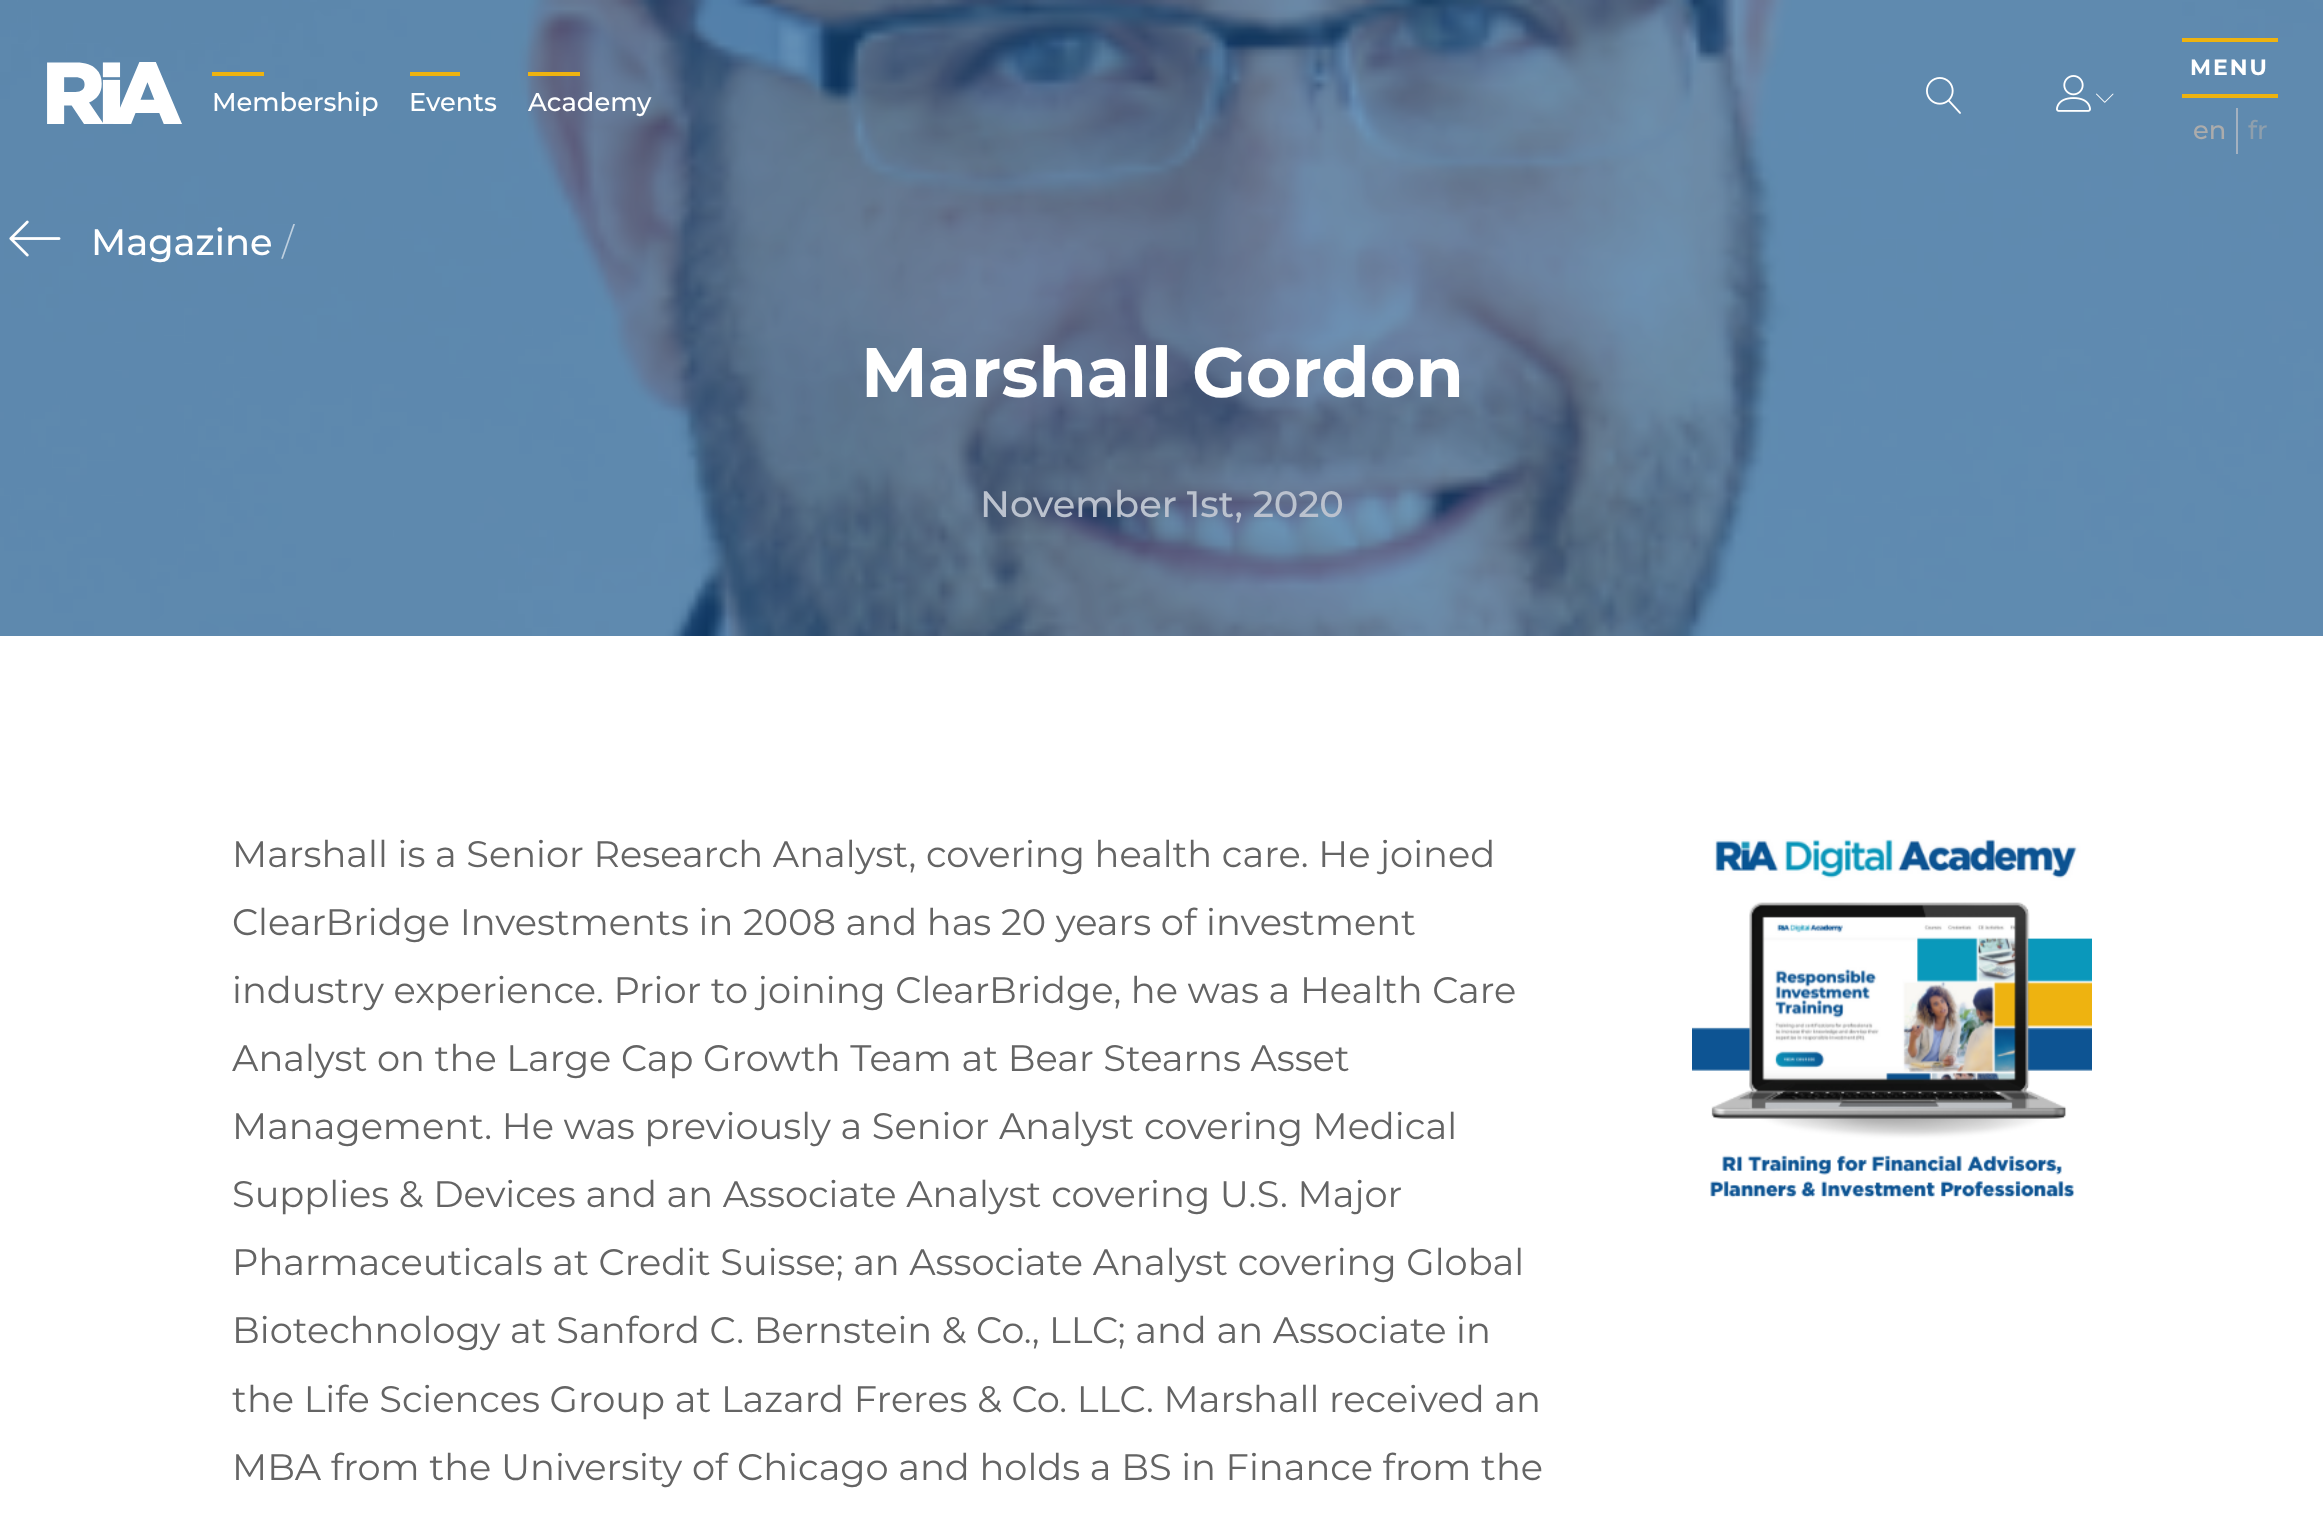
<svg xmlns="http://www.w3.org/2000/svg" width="2323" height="1528">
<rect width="100%" height="100%" fill="#fff"/>
<rect width="2323" height="636" fill="#0d5493"/>
<image x="0" y="0" width="2323" height="636" href="media/5.png"/>
<image x="47" y="62" width="135" height="62" href="media/1.png"/>
<rect x="212" y="72" width="52" height="4" fill="#eeb310"/>
<text x="212" y="111" style="font-family:Montserrat;font-size:25.75px;font-weight:500;fill:#fff">Membership</text>
<rect x="410" y="72" width="50" height="4" fill="#eeb310"/>
<text x="409" y="111" style="font-family:Montserrat;font-size:25.75px;font-weight:500;fill:#fff">Events</text>
<rect x="528" y="72" width="52" height="4" fill="#eeb310"/>
<text x="528" y="111" style="font-family:Montserrat;font-size:25.75px;font-weight:500;fill:#fff">Academy</text>
<image x="1926" y="77" width="35" height="37" href="media/2.png"/>
<image x="2056" y="75" width="35" height="37" href="media/3.png"/>
<image x="2096" y="93" width="18" height="10" href="media/4.png"/>
<rect x="2182" y="38" width="96" height="4" fill="#eeb310"/>
<text x="2190" y="75" style="font-family:Montserrat;font-size:22px;font-weight:bold;letter-spacing:2px;fill:#fff">MENU</text>
<rect x="2182" y="94" width="96" height="4" fill="#eeb310"/>
<text x="2193" y="139" style="font-family:Montserrat;font-size:25.75px;font-weight:500;fill:#acacac">en</text>
<rect x="2236" y="108" width="2" height="46" fill="#a4b1c0"/>
<text x="2248" y="139" style="font-family:Montserrat;font-size:25.75px;font-weight:500;fill:#8e9fad">fr</text>
<image x="9" y="220" width="52" height="37" href="media/6.png"/>
<text x="91" y="255" style="font-family:Montserrat;font-size:36.8px;font-weight:500;fill:#fff">Magazine</text>
<text x="282" y="255" style="font-family:Montserrat;font-size:36.8px;font-weight:300;fill:#bfd0df">/</text>
<text x="861" y="397" style="font-family:Montserrat;font-size:70px;font-weight:bold;fill:#fff">Marshall Gordon</text>
<text x="980" y="517" style="font-family:Montserrat;font-size:36.8px;font-weight:500;fill:#bbc2ce">November 1st, 2020</text>
<text x="232" y="867" style="font-family:Montserrat;font-size:36.8px;fill:#646464">Marshall is a Senior Research Analyst, covering health care. He joined</text>
<text x="232" y="935" style="font-family:Montserrat;font-size:36.8px;fill:#646464">ClearBridge Investments in 2008 and has 20 years of investment</text>
<text x="232" y="1003" style="font-family:Montserrat;font-size:36.8px;fill:#646464">industry experience. Prior to joining ClearBridge, he was a Health Care</text>
<text x="232" y="1071" style="font-family:Montserrat;font-size:36.8px;fill:#646464">Analyst on the Large Cap Growth Team at Bear Stearns Asset</text>
<text x="232" y="1139" style="font-family:Montserrat;font-size:36.8px;fill:#646464">Management. He was previously a Senior Analyst covering Medical</text>
<text x="232" y="1207" style="font-family:Montserrat;font-size:36.8px;fill:#646464">Supplies &amp; Devices and an Associate Analyst covering U.S. Major</text>
<text x="232" y="1275" style="font-family:Montserrat;font-size:36.8px;fill:#646464">Pharmaceuticals at Credit Suisse; an Associate Analyst covering Global</text>
<text x="232" y="1343" style="font-family:Montserrat;font-size:36.8px;fill:#646464">Biotechnology at Sanford C. Bernstein &amp; Co., LLC; and an Associate in</text>
<text x="232" y="1412" style="font-family:Montserrat;font-size:36.8px;fill:#646464">the Life Sciences Group at Lazard Freres &amp; Co. LLC. Marshall received an</text>
<text x="232" y="1480" style="font-family:Montserrat;font-size:36.8px;fill:#646464">MBA from the University of Chicago and holds a BS in Finance from the</text>
<image x="1692" y="839" width="400" height="359" href="media/7.png"/>
</svg>
